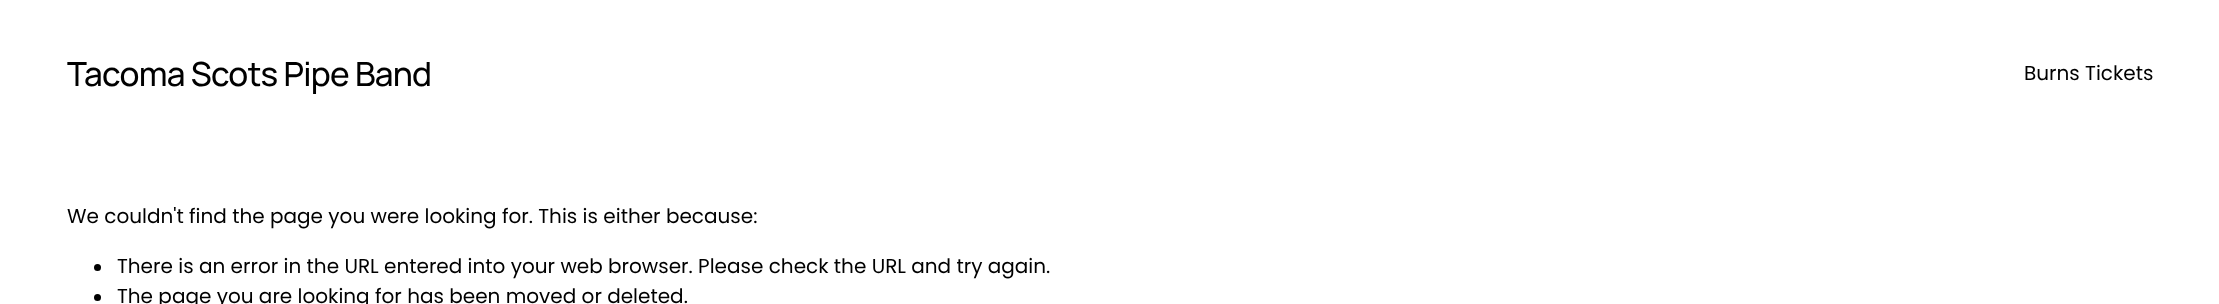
<svg xmlns="http://www.w3.org/2000/svg" width="2219" height="304">
<rect width="100%" height="100%" fill="#fff"/>
<text x="67" y="86" style="font-family:Manrope;font-size:33.25px;font-weight:500;letter-spacing:-0.7px;fill:#000">Tacoma Scots Pipe Band</text>
<text x="2024" y="80" style="font-family:Poppins;font-size:20px;fill:#000">Burns Tickets</text>
<text x="67" y="223" style="font-family:Poppins;font-size:20px;fill:#000">We couldn't find the page you were looking for. This is either because:</text>
<circle cx="97.5" cy="267.5" r="3.5" fill="#000"/>
<text x="117" y="273" style="font-family:Poppins;font-size:20px;fill:#000">There is an error in the URL entered into your web browser. Please check the URL and try again.</text>
<circle cx="97.5" cy="297.5" r="3.5" fill="#000"/>
<text x="117" y="303" style="font-family:Poppins;font-size:20px;fill:#000">The page you are looking for has been moved or deleted.</text>
</svg>
